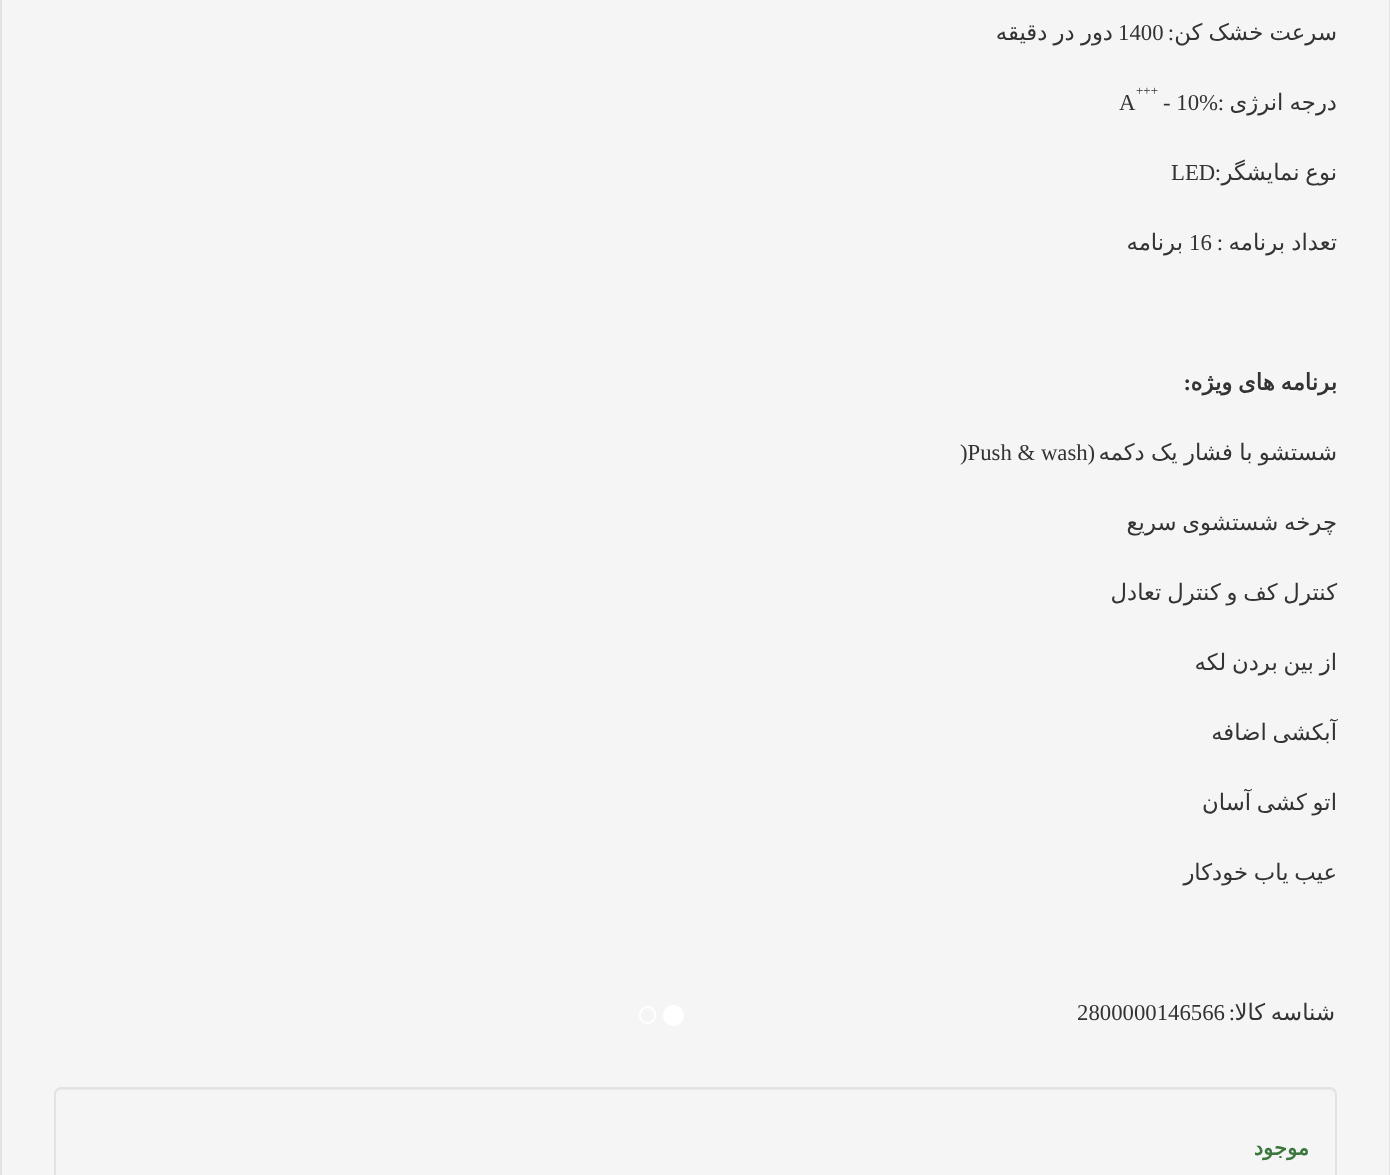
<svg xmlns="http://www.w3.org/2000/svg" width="1390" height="1175">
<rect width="100%" height="100%" fill="#f5f5f5"/>
<rect x="1" y="-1" width="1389" height="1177" fill="none" stroke="#e3e3e3" stroke-width="2"/>
<text x="1337" y="40" word-spacing="-1" style="font-family:DejaVu Sans;font-size:22.75px;direction:rtl;fill:#333">سرعت خشک کن</text>
<text x="1174" y="40" style="font-family:Liberation Serif;font-size:22.75px;direction:rtl;fill:#333">:</text>
<text x="1118" y="40" style="font-family:Liberation Serif;font-size:22.75px;fill:#333">1400</text>
<text x="1113" y="40" word-spacing="-1" style="font-family:DejaVu Sans;font-size:22.75px;direction:rtl;fill:#333">دور در دقیقه</text>
<text x="1136" y="95" style="font-family:Liberation Serif;font-size:13px;fill:#333">+++</text>
<text x="1337" y="110" word-spacing="-1" style="font-family:DejaVu Sans;font-size:22.75px;direction:rtl;fill:#333">درجه انرژی</text>
<text x="1224" y="110" style="font-family:Liberation Serif;font-size:22.75px;direction:rtl;fill:#333">:</text>
<text x="1163" y="110" style="font-family:Liberation Serif;font-size:22.75px;fill:#333">- 10%</text>
<text x="1119" y="110" style="font-family:Liberation Serif;font-size:22.75px;fill:#333">A</text>
<text x="1337" y="180" word-spacing="-1.5" style="font-family:DejaVu Sans;font-size:22.75px;direction:rtl;fill:#333">نوع نمایشگر</text>
<text x="1221" y="180" style="font-family:Liberation Serif;font-size:22.75px;direction:rtl;fill:#333">:</text>
<text x="1171" y="180" style="font-family:Liberation Serif;font-size:22.75px;fill:#333">LED</text>
<text x="1337" y="250" word-spacing="-1" style="font-family:DejaVu Sans;font-size:22.75px;direction:rtl;fill:#333">تعداد برنامه</text>
<text x="1223" y="250" style="font-family:Liberation Serif;font-size:22.75px;direction:rtl;fill:#333">:</text>
<text x="1189" y="250" style="font-family:Liberation Serif;font-size:22.75px;fill:#333">16</text>
<text x="1183" y="250" style="font-family:DejaVu Sans;font-size:22.75px;direction:rtl;fill:#333">برنامه</text>
<text x="1337" y="390" word-spacing="-1.5" style="font-family:DejaVu Sans;font-size:22.75px;font-weight:bold;direction:rtl;fill:#333">برنامه های ویژه</text>
<text x="1191" y="390" style="font-family:Liberation Serif;font-size:22.75px;font-weight:bold;direction:rtl;fill:#333">:</text>
<text x="1337" y="460" word-spacing="-1" style="font-family:DejaVu Sans;font-size:22.75px;direction:rtl;fill:#333">شستشو با فشار یک دکمه</text>
<text x="1095" y="460" style="font-family:Liberation Serif;font-size:22.75px;direction:rtl;fill:#333">(</text>
<text x="960" y="460" style="font-family:Liberation Serif;font-size:22.75px;fill:#333">)Push &amp; wash</text>
<text x="1337" y="530" word-spacing="-1.5" style="font-family:DejaVu Sans;font-size:22.75px;direction:rtl;fill:#333">چرخه شستشوی سریع</text>
<text x="1337" y="600" word-spacing="-1.5" style="font-family:DejaVu Sans;font-size:22.75px;direction:rtl;fill:#333">کنترل کف و کنترل تعادل</text>
<text x="1337" y="670" word-spacing="-1.5" style="font-family:DejaVu Sans;font-size:22.75px;direction:rtl;fill:#333">از بین بردن لکه</text>
<text x="1337" y="740" word-spacing="-1.5" style="font-family:DejaVu Sans;font-size:22.75px;direction:rtl;fill:#333">آبکشی اضافه</text>
<text x="1337" y="810" word-spacing="-1.5" style="font-family:DejaVu Sans;font-size:22.75px;direction:rtl;fill:#333">اتو کشی آسان</text>
<text x="1337" y="880" word-spacing="-1.5" style="font-family:DejaVu Sans;font-size:22.75px;direction:rtl;fill:#333">عیب یاب خودکار</text>
<text x="1335" y="1020" word-spacing="-1.5" style="font-family:DejaVu Sans;font-size:22.75px;direction:rtl;fill:#333">شناسه کالا</text>
<text x="1235" y="1020" style="font-family:Liberation Serif;font-size:22.75px;direction:rtl;fill:#333">:</text>
<text x="1077" y="1020" style="font-family:Liberation Serif;font-size:22.75px;fill:#333">2800000146566</text>
<circle cx="673.5" cy="1015.5" r="10.5" fill="#fff"/>
<rect x="640" y="1007" width="15" height="16" rx="7.5" fill="none" stroke="#fff" stroke-width="2"/>
<path d="M61 1090h1269c3 0 5 3 5 6v-2c0-3-2-5-5-5h-1269c-3 0-5 2-5 5v2c0-3 2-6 5-6z" fill="#e9e9e9"/>
<rect x="55" y="1088" width="1281" height="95" rx="6" fill="none" stroke="#e3e3e3" stroke-width="2"/>
<text x="1309" y="1155" style="font-family:DejaVu Sans;font-size:21px;font-weight:bold;direction:rtl;fill:#3c763d">موجود</text>
</svg>
